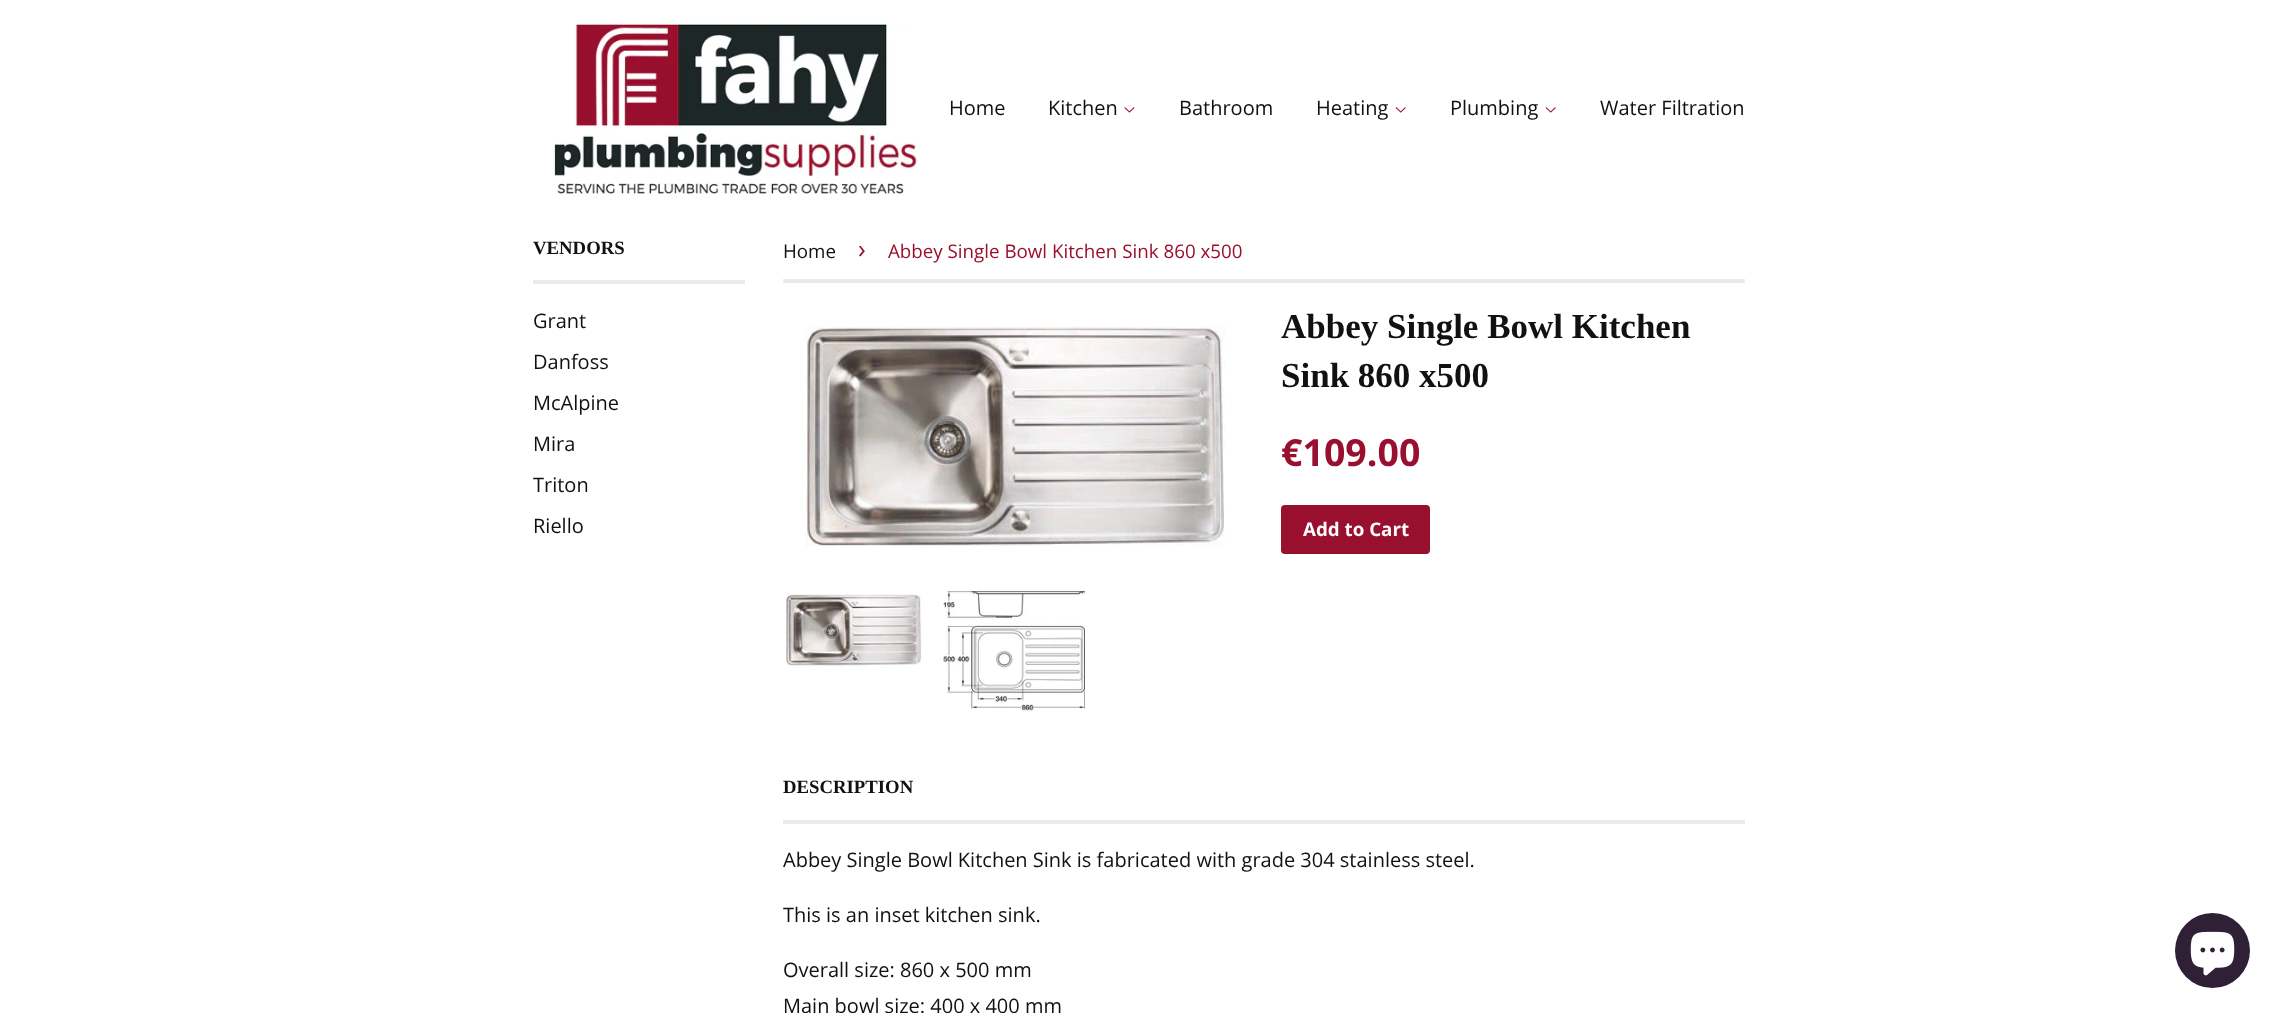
<svg xmlns="http://www.w3.org/2000/svg" width="2277" height="1013">
<rect width="100%" height="100%" fill="#fff"/>
<image x="554" y="19" width="364" height="178" href="media/1.png"/>
<text x="949" y="115" style="font-family:Open Sans;font-size:20px;fill:#111">Home</text>
<text x="1048" y="115" style="font-family:Open Sans;font-size:20px;fill:#111">Kitchen</text>
<image x="1124" y="107" width="11" height="6" href="media/2.png"/>
<text x="1179" y="115" style="font-family:Open Sans;font-size:20px;fill:#111">Bathroom</text>
<text x="1316" y="115" style="font-family:Open Sans;font-size:20px;fill:#111">Heating</text>
<image x="1395" y="107" width="11" height="6" href="media/3.png"/>
<text x="1450" y="115" style="font-family:Open Sans;font-size:20px;fill:#111">Plumbing</text>
<image x="1545" y="107" width="11" height="6" href="media/3.png"/>
<text x="1600" y="115" style="font-family:Open Sans;font-size:20px;fill:#111">Water Filtration</text>
<rect x="533" y="280" width="212" height="4" fill="#eaeaea"/>
<text x="533" y="254" style="font-family:Liberation Serif;font-size:18.75px;font-weight:bold;fill:#111">VENDORS</text>
<text x="533" y="328" style="font-family:Open Sans;font-size:20px;fill:#111">Grant</text>
<text x="533" y="369" style="font-family:Open Sans;font-size:20px;fill:#111">Danfoss</text>
<text x="533" y="410" style="font-family:Open Sans;font-size:20px;fill:#111">McAlpine</text>
<text x="533" y="451" style="font-family:Open Sans;font-size:20px;fill:#111">Mira</text>
<text x="533" y="492" style="font-family:Open Sans;font-size:20px;fill:#111">Triton</text>
<text x="533" y="533" style="font-family:Open Sans;font-size:20px;fill:#111">Riello</text>
<rect x="783" y="279" width="962" height="4" fill="#eaeaea"/>
<text x="783" y="258" style="font-family:Open Sans;font-size:18.75px;fill:#111">Home</text>
<text x="858" y="258" style="font-family:Open Sans;font-size:26px;fill:#99102e">›</text>
<text x="888" y="258" style="font-family:Open Sans;font-size:18.75px;fill:#99102e">Abbey Single Bowl Kitchen Sink 860 x500</text>
<image x="805" y="326" width="420" height="221" href="media/4.png"/>
<text x="1281" y="338" style="font-family:Liberation Serif;font-size:35px;font-weight:bold;fill:#111">Abbey Single Bowl Kitchen</text>
<text x="1281" y="387" style="font-family:Liberation Serif;font-size:35px;font-weight:bold;fill:#111">Sink 860 x500</text>
<text x="1281" y="466" style="font-family:Open Sans;font-size:37.5px;font-weight:bold;fill:#99102e">€109.00</text>
<rect x="1281" y="505" width="149" height="49" rx="4" fill="#99102e"/>
<text x="1303" y="536" style="font-family:Open Sans;font-size:18.75px;font-weight:bold;fill:#fff">Add to Cart</text>
<image x="786" y="594" width="136" height="75" href="media/5.png"/>
<image x="943" y="591" width="142" height="120" href="media/6.png"/>
<rect x="783" y="820" width="962" height="4" fill="#eaeaea"/>
<text x="783" y="793" style="font-family:Liberation Serif;font-size:18.75px;font-weight:bold;fill:#111">DESCRIPTION</text>
<text x="783" y="867" style="font-family:Open Sans;font-size:20px;fill:#111">Abbey Single Bowl Kitchen Sink is fabricated with grade 304 stainless steel.</text>
<text x="783" y="922" style="font-family:Open Sans;font-size:20px;fill:#111">This is an inset kitchen sink.</text>
<text x="783" y="977" style="font-family:Open Sans;font-size:20px;fill:#111">Overall size: 860 x 500 mm</text>
<text x="783" y="1013" style="font-family:Open Sans;font-size:20px;fill:#111">Main bowl size: 400 x 400 mm</text>
<circle cx="2212.5" cy="950.5" r="37.5" fill="#2f2036"/>
<image x="2190" y="931" width="45" height="45" href="media/7.png"/>
</svg>
